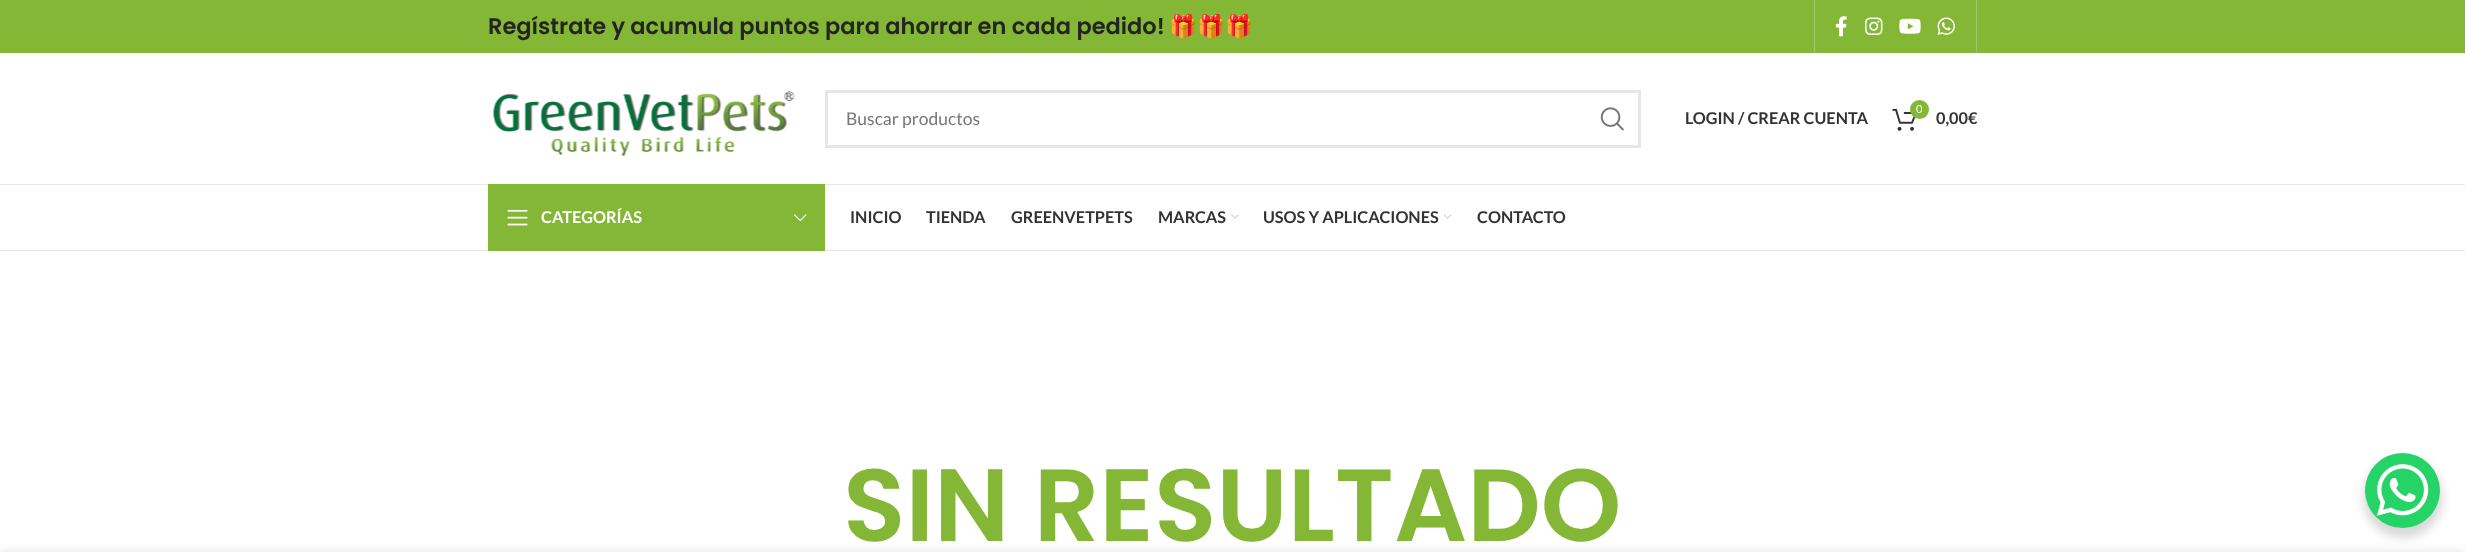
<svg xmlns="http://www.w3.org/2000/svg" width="2465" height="552">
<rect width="100%" height="100%" fill="#fff"/>
<rect width="2465" height="53" fill="#83b735"/>
<text x="488" y="34" style="font-family:Poppins;font-size:22.5px;font-weight:600;fill:#242424">Regístrate y acumula puntos para ahorrar en cada pedido!</text>
<text x="1169" y="34" style="font-family:Noto Color Emoji;font-size:22.5px;font-weight:bold;fill:#242424">🎁🎁🎁</text>
<rect x="1814" width="1" height="53" fill="#a2c968"/>
<image x="1835" y="16" width="12" height="21" href="media/1.png"/>
<image x="1865" y="17" width="18" height="18" href="media/2.png"/>
<image x="1899" y="18" width="22" height="16" href="media/3.png"/>
<image x="1937" y="17" width="18" height="18" href="media/4.png"/>
<rect x="1976" width="1" height="53" fill="#a2c968"/>
<rect y="184" width="2465" height="1" fill="#e8e8e8"/>
<image x="489" y="91" width="306" height="65" href="media/5.png"/>
<rect x="826.5" y="91.5" width="813" height="55" fill="none" stroke="#e6e6e6" stroke-width="3"/>
<text x="846" y="125" style="font-family:Lato;font-size:17.5px;fill:#767676">Buscar productos</text>
<image x="1600" y="107" width="24" height="24" href="media/6.png"/>
<text x="1685" y="124" style="font-family:Lato;font-size:16.25px;font-weight:bold;fill:#333">LOGIN / CREAR CUENTA</text>
<image x="1892" y="108" width="24" height="23" href="media/7.png"/>
<circle cx="1919.5" cy="109.5" r="9.5" fill="#83b735"/>
<text x="1916" y="113" style="font-family:Lato;font-size:11px;fill:#fff">0</text>
<text x="1936" y="124" style="font-family:Lato;font-size:16.25px;font-weight:bold;fill:#333">0,00€</text>
<rect y="250" width="2465" height="1" fill="#e8e8e8"/>
<rect x="488" y="184" width="337" height="67" fill="#83b735"/>
<image x="507" y="209" width="21" height="17" href="media/8.png"/>
<text x="541" y="223" style="font-family:Lato;font-size:16.25px;font-weight:bold;fill:#fff">CATEGORÍAS</text>
<image x="793" y="214" width="14" height="8" href="media/9.png"/>
<text x="850" y="223" style="font-family:Lato;font-size:16.25px;font-weight:bold;fill:#333">INICIO</text>
<text x="926" y="223" style="font-family:Lato;font-size:16.25px;font-weight:bold;fill:#333">TIENDA</text>
<text x="1011" y="223" style="font-family:Lato;font-size:16.25px;font-weight:bold;fill:#333">GREENVETPETS</text>
<text x="1158" y="223" style="font-family:Lato;font-size:16.25px;font-weight:bold;fill:#333">MARCAS</text>
<image x="1231" y="214" width="8" height="5" href="media/10.png"/>
<text x="1263" y="223" style="font-family:Lato;font-size:16.25px;font-weight:bold;fill:#333">USOS Y APLICACIONES</text>
<image x="1444" y="214" width="8" height="5" href="media/11.png"/>
<text x="1477" y="223" style="font-family:Lato;font-size:16.25px;font-weight:bold;fill:#333">CONTACTO</text>
<text x="843" y="541" style="font-family:Poppins;font-size:102.5px;font-weight:600;fill:#83b735">SIN RESULTADO</text>
<rect x="2363" y="458" width="80" height="80" rx="40" fill="#00000026" filter="blur(5px)"/>
<circle cx="2402.5" cy="490.5" r="37.5" fill="#25d366"/>
<image x="2377" y="464" width="52" height="52" href="media/12.png"/>
<rect y="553" width="2465" height="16" fill="#00000024" filter="blur(5.5px)"/>
</svg>
